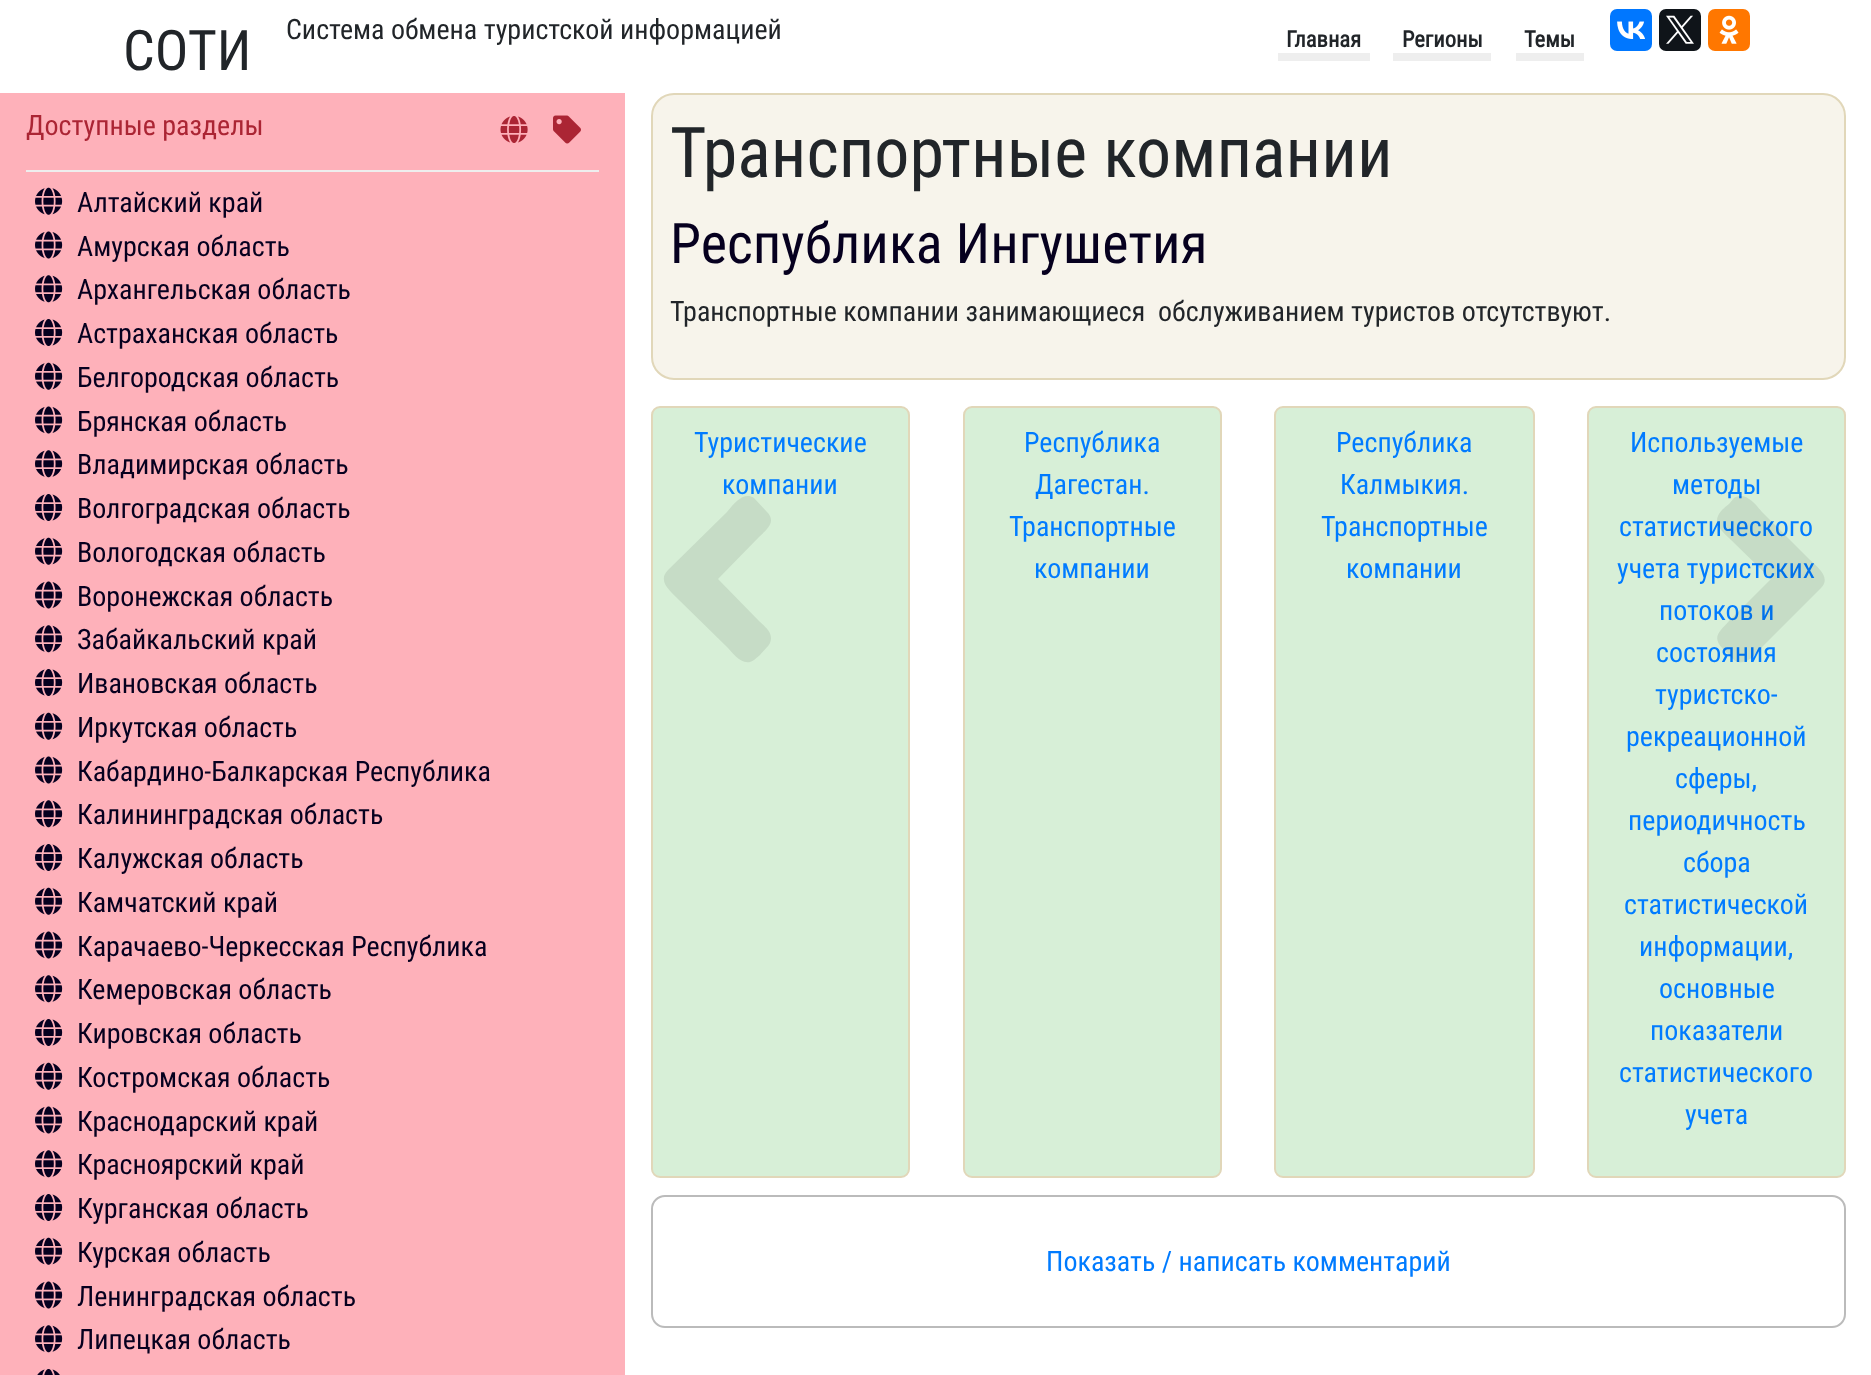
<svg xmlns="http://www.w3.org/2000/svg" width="1871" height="1375">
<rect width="100%" height="100%" fill="#fff"/>
<text x="123" y="70" style="font-family:Roboto Condensed;font-size:56px;fill:#212529">СОТИ</text>
<text x="286" y="39" style="font-family:Roboto Condensed;font-size:28px;fill:#212529">Система обмена туристской информацией</text>
<text x="1286" y="47" style="font-family:Roboto Condensed;font-size:22.5px;font-weight:bold;fill:#212529">Главная</text>
<rect x="1278" y="53" width="92" height="8" fill="#eee"/>
<text x="1402" y="47" style="font-family:Roboto Condensed;font-size:22.5px;font-weight:bold;fill:#212529">Регионы</text>
<rect x="1393" y="53" width="98" height="8" fill="#eee"/>
<text x="1524" y="47" style="font-family:Roboto Condensed;font-size:22.5px;font-weight:bold;fill:#212529">Темы</text>
<rect x="1516" y="53" width="68" height="8" fill="#eee"/>
<rect x="1610" y="9" width="42" height="42" rx="7" fill="#07f"/>
<image x="1617" y="21" width="28" height="18" href="media/1.png"/>
<rect x="1659" y="9" width="42" height="42" rx="7" fill="#0f1419"/>
<image x="1666" y="15" width="28" height="29" href="media/2.png"/>
<rect x="1708" y="9" width="42" height="42" rx="7" fill="#f70"/>
<image x="1719" y="15" width="20" height="29" href="media/3.png"/>
<rect y="93" width="625" height="1282" fill="#feb1ba"/>
<rect x="26" y="170" width="573" height="2" fill="#eee"/>
<text x="26" y="135" style="font-family:Roboto Condensed;font-size:28px;fill:#ab2534">Доступные разделы</text>
<image x="500" y="116" width="28" height="27" href="media/4.png"/>
<image x="553" y="115" width="28" height="29" href="media/5.png"/>
<image x="35" y="187" width="28" height="28" href="media/6.png"/>
<text x="77" y="212" style="font-family:Roboto Condensed;font-size:28px;fill:#06001f">Алтайский край</text>
<image x="35" y="231" width="28" height="28" href="media/7.png"/>
<text x="77" y="256" style="font-family:Roboto Condensed;font-size:28px;fill:#06001f">Амурская область</text>
<image x="35" y="275" width="28" height="28" href="media/8.png"/>
<text x="77" y="299" style="font-family:Roboto Condensed;font-size:28px;fill:#06001f">Архангельская область</text>
<image x="35" y="319" width="28" height="27" href="media/9.png"/>
<text x="77" y="343" style="font-family:Roboto Condensed;font-size:28px;fill:#06001f">Астраханская область</text>
<image x="35" y="362" width="28" height="28" href="media/6.png"/>
<text x="77" y="387" style="font-family:Roboto Condensed;font-size:28px;fill:#06001f">Белгородская область</text>
<image x="35" y="406" width="28" height="28" href="media/7.png"/>
<text x="77" y="431" style="font-family:Roboto Condensed;font-size:28px;fill:#06001f">Брянская область</text>
<image x="35" y="450" width="28" height="28" href="media/8.png"/>
<text x="77" y="474" style="font-family:Roboto Condensed;font-size:28px;fill:#06001f">Владимирская область</text>
<image x="35" y="494" width="28" height="27" href="media/9.png"/>
<text x="77" y="518" style="font-family:Roboto Condensed;font-size:28px;fill:#06001f">Волгоградская область</text>
<image x="35" y="537" width="28" height="28" href="media/6.png"/>
<text x="77" y="562" style="font-family:Roboto Condensed;font-size:28px;fill:#06001f">Вологодская область</text>
<image x="35" y="581" width="28" height="28" href="media/7.png"/>
<text x="77" y="606" style="font-family:Roboto Condensed;font-size:28px;fill:#06001f">Воронежская область</text>
<image x="35" y="625" width="28" height="28" href="media/8.png"/>
<text x="77" y="649" style="font-family:Roboto Condensed;font-size:28px;fill:#06001f">Забайкальский край</text>
<image x="35" y="669" width="28" height="27" href="media/9.png"/>
<text x="77" y="693" style="font-family:Roboto Condensed;font-size:28px;fill:#06001f">Ивановская область</text>
<image x="35" y="712" width="28" height="28" href="media/6.png"/>
<text x="77" y="737" style="font-family:Roboto Condensed;font-size:28px;fill:#06001f">Иркутская область</text>
<image x="35" y="756" width="28" height="28" href="media/7.png"/>
<text x="77" y="781" style="font-family:Roboto Condensed;font-size:28px;fill:#06001f">Кабардино-Балкарская Республика</text>
<image x="35" y="800" width="28" height="28" href="media/8.png"/>
<text x="77" y="824" style="font-family:Roboto Condensed;font-size:28px;fill:#06001f">Калининградская область</text>
<image x="35" y="844" width="28" height="27" href="media/9.png"/>
<text x="77" y="868" style="font-family:Roboto Condensed;font-size:28px;fill:#06001f">Калужская область</text>
<image x="35" y="887" width="28" height="28" href="media/6.png"/>
<text x="77" y="912" style="font-family:Roboto Condensed;font-size:28px;fill:#06001f">Камчатский край</text>
<image x="35" y="931" width="28" height="28" href="media/7.png"/>
<text x="77" y="956" style="font-family:Roboto Condensed;font-size:28px;fill:#06001f">Карачаево-Черкесская Республика</text>
<image x="35" y="975" width="28" height="28" href="media/8.png"/>
<text x="77" y="999" style="font-family:Roboto Condensed;font-size:28px;fill:#06001f">Кемеровская область</text>
<image x="35" y="1019" width="28" height="27" href="media/9.png"/>
<text x="77" y="1043" style="font-family:Roboto Condensed;font-size:28px;fill:#06001f">Кировская область</text>
<image x="35" y="1062" width="28" height="28" href="media/6.png"/>
<text x="77" y="1087" style="font-family:Roboto Condensed;font-size:28px;fill:#06001f">Костромская область</text>
<image x="35" y="1106" width="28" height="28" href="media/7.png"/>
<text x="77" y="1131" style="font-family:Roboto Condensed;font-size:28px;fill:#06001f">Краснодарский край</text>
<image x="35" y="1150" width="28" height="28" href="media/8.png"/>
<text x="77" y="1174" style="font-family:Roboto Condensed;font-size:28px;fill:#06001f">Красноярский край</text>
<image x="35" y="1194" width="28" height="27" href="media/9.png"/>
<text x="77" y="1218" style="font-family:Roboto Condensed;font-size:28px;fill:#06001f">Курганская область</text>
<image x="35" y="1237" width="28" height="28" href="media/6.png"/>
<text x="77" y="1262" style="font-family:Roboto Condensed;font-size:28px;fill:#06001f">Курская область</text>
<image x="35" y="1281" width="28" height="28" href="media/7.png"/>
<text x="77" y="1306" style="font-family:Roboto Condensed;font-size:28px;fill:#06001f">Ленинградская область</text>
<image x="35" y="1325" width="28" height="28" href="media/8.png"/>
<text x="77" y="1349" style="font-family:Roboto Condensed;font-size:28px;fill:#06001f">Липецкая область</text>
<image x="37" y="1369" width="23" height="6" href="media/10.png"/>
<rect x="652" y="94" width="1193" height="285" rx="22" fill="#f7f4eb" stroke="#e1d7b9" stroke-width="2"/>
<text x="670" y="177" style="font-family:Roboto Condensed;font-size:70px;fill:#212529">Транспортные компании</text>
<text x="670" y="263" style="font-family:Roboto Condensed;font-size:56px;fill:#06001f">Республика Ингушетия</text>
<text x="670" y="321" style="font-family:Roboto Condensed;font-size:28px;fill:#212529" xml:space="preserve">Транспортные компании занимающиеся  обслуживанием туристов отсутствуют.</text>
<rect x="652" y="407" width="257" height="770" rx="8" fill="#d7efd7" stroke="#e1d7b9" stroke-width="2"/>
<text x="694" y="452" style="font-family:Roboto Condensed;font-size:28px;fill:#007bff">Туристические</text>
<text x="722" y="494" style="font-family:Roboto Condensed;font-size:28px;fill:#007bff">компании</text>
<path d="M668 570l59-58c6-7 16-21 27-14l13 14c10 10-1 18-8 25l-41 42l41 42c6 6 15 12 11 22c-2 4-7 8-10 12l-6 5c-11 8-21-7-27-13l-48-47c-6-7-23-18-11-30z" fill="#c6dcc6"/>
<rect x="964" y="407" width="257" height="770" rx="8" fill="#d7efd7" stroke="#e1d7b9" stroke-width="2"/>
<text x="1024" y="452" style="font-family:Roboto Condensed;font-size:28px;fill:#007bff">Республика</text>
<text x="1035" y="494" style="font-family:Roboto Condensed;font-size:28px;fill:#007bff">Дагестан.</text>
<text x="1009" y="536" style="font-family:Roboto Condensed;font-size:28px;fill:#007bff">Транспортные</text>
<text x="1034" y="578" style="font-family:Roboto Condensed;font-size:28px;fill:#007bff">компании</text>
<rect x="1275" y="407" width="259" height="770" rx="8" fill="#d7efd7" stroke="#e1d7b9" stroke-width="2"/>
<text x="1336" y="452" style="font-family:Roboto Condensed;font-size:28px;fill:#007bff">Республика</text>
<text x="1340" y="494" style="font-family:Roboto Condensed;font-size:28px;fill:#007bff">Калмыкия.</text>
<text x="1321" y="536" style="font-family:Roboto Condensed;font-size:28px;fill:#007bff">Транспортные</text>
<text x="1346" y="578" style="font-family:Roboto Condensed;font-size:28px;fill:#007bff">компании</text>
<rect x="1588" y="407" width="257" height="770" rx="8" fill="#d7efd7" stroke="#e1d7b9" stroke-width="2"/>
<text x="1630" y="452" style="font-family:Roboto Condensed;font-size:28px;fill:#007bff">Используемые</text>
<text x="1672" y="494" style="font-family:Roboto Condensed;font-size:28px;fill:#007bff">методы</text>
<text x="1619" y="536" style="font-family:Roboto Condensed;font-size:28px;fill:#007bff">статистического</text>
<text x="1617" y="578" style="font-family:Roboto Condensed;font-size:28px;fill:#007bff">учета туристских</text>
<text x="1659" y="620" style="font-family:Roboto Condensed;font-size:28px;fill:#007bff">потоков и</text>
<text x="1656" y="662" style="font-family:Roboto Condensed;font-size:28px;fill:#007bff">состояния</text>
<text x="1655" y="704" style="font-family:Roboto Condensed;font-size:28px;fill:#007bff">туристско-</text>
<text x="1626" y="746" style="font-family:Roboto Condensed;font-size:28px;fill:#007bff">рекреационной</text>
<text x="1675" y="788" style="font-family:Roboto Condensed;font-size:28px;fill:#007bff">сферы,</text>
<text x="1628" y="830" style="font-family:Roboto Condensed;font-size:28px;fill:#007bff">периодичность</text>
<text x="1683" y="872" style="font-family:Roboto Condensed;font-size:28px;fill:#007bff">сбора</text>
<text x="1624" y="914" style="font-family:Roboto Condensed;font-size:28px;fill:#007bff">статистической</text>
<text x="1639" y="956" style="font-family:Roboto Condensed;font-size:28px;fill:#007bff">информации,</text>
<text x="1659" y="998" style="font-family:Roboto Condensed;font-size:28px;fill:#007bff">основные</text>
<text x="1650" y="1040" style="font-family:Roboto Condensed;font-size:28px;fill:#007bff">показатели</text>
<text x="1619" y="1082" style="font-family:Roboto Condensed;font-size:28px;fill:#007bff">статистического</text>
<text x="1685" y="1124" style="font-family:Roboto Condensed;font-size:28px;fill:#007bff">учета</text>
<path d="M1821 588l-59 59c-6 6-16 21-28 13l-11-11c-12-12-3-18 6-28l42-42l-42-41c-6-6-15-13-11-22c2-5 7-9 11-12l5-6c12-7 22 7 28 14l47 47c7 7 23 18 12 29z" fill="#00000014"/>
<rect x="652" y="1196" width="1193" height="131" rx="13" fill="none" stroke="#bbb" stroke-width="2"/>
<text x="1046" y="1271" style="font-family:Roboto Condensed;font-size:28px;fill:#007bff">Показать / написать комментарий</text>
</svg>
